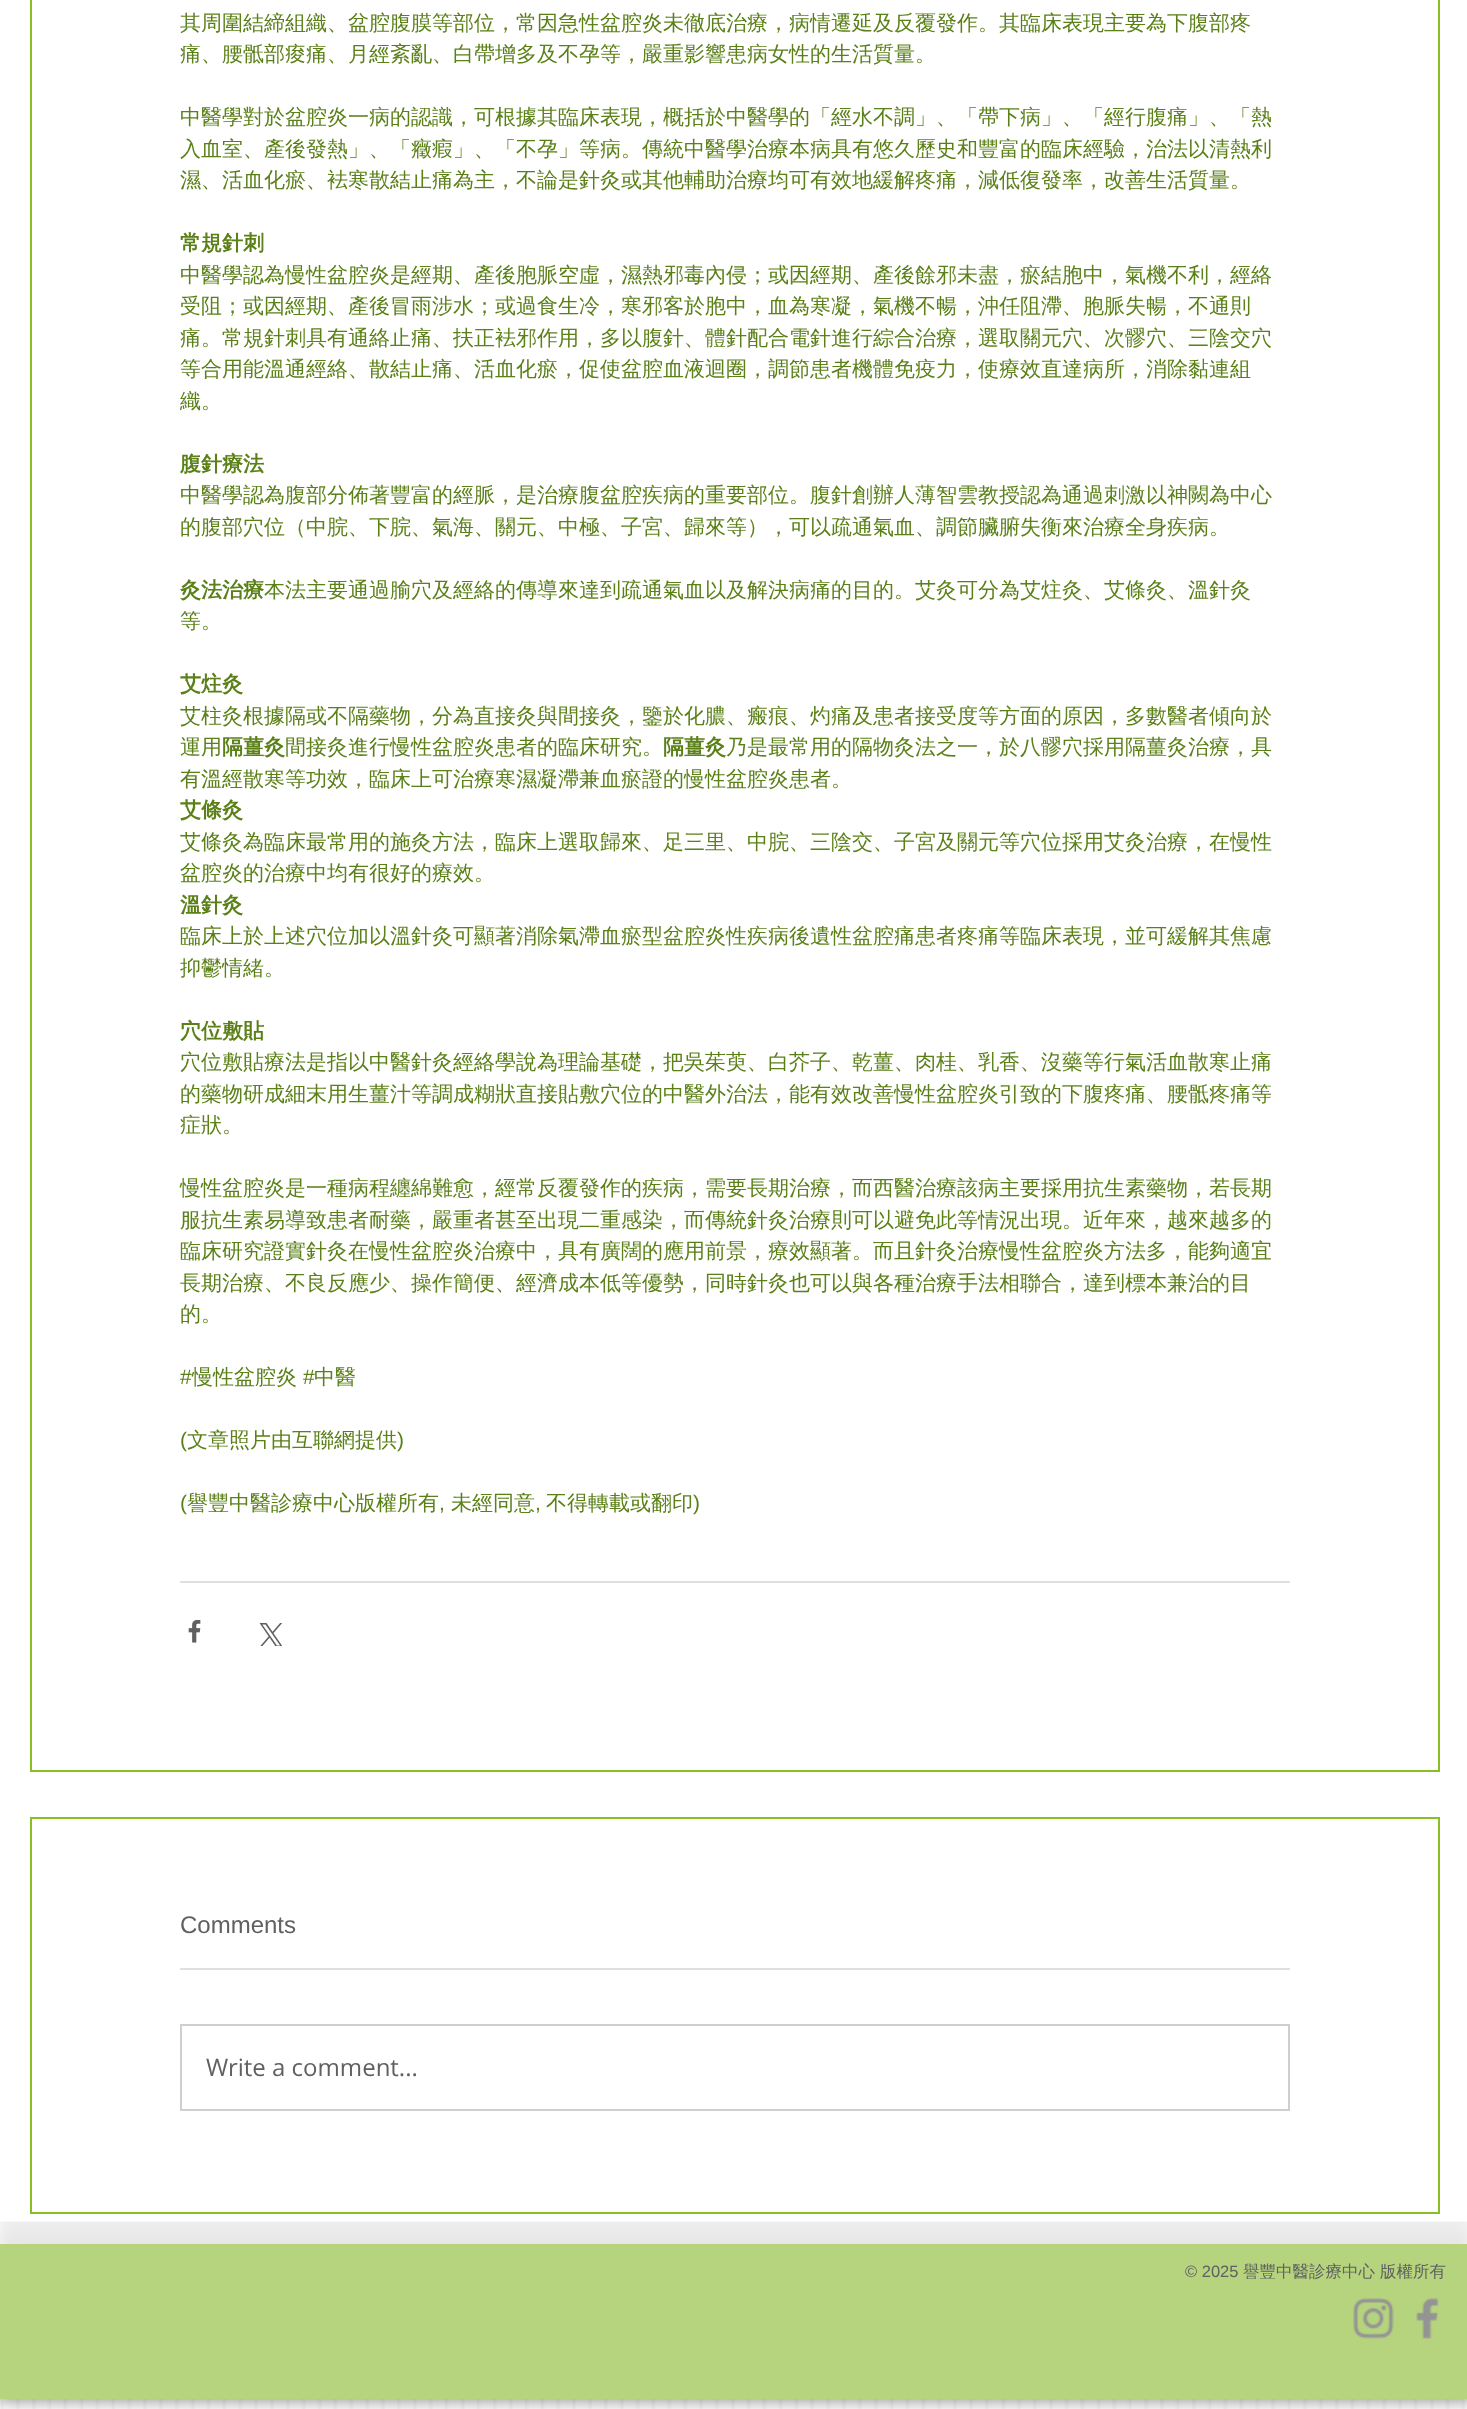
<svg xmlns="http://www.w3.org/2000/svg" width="1467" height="2409">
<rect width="100%" height="100%" fill="#fff"/>
<rect x="31" y="-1" width="1408" height="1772" fill="none" stroke="#89bf24" stroke-width="2"/>
<text x="180" y="30" style="font-family:WenQuanYi Zen Hei;font-size:21px;font-weight:500;fill:#5b8018">其周圍結締組織、盆腔腹膜等部位，常因急性盆腔炎未徹底治療，病情遷延及反覆發作。其臨床表現主要為下腹部疼</text>
<text x="180" y="61" style="font-family:WenQuanYi Zen Hei;font-size:21px;font-weight:500;fill:#5b8018">痛、腰骶部痠痛、月經紊亂、白帶增多及不孕等，嚴重影響患病女性的生活質量。</text>
<text x="180" y="124" style="font-family:WenQuanYi Zen Hei;font-size:21px;font-weight:500;fill:#5b8018">中醫學對於盆腔炎一病的認識，可根據其臨床表現，概括於中醫學的「經水不調」、「帶下病」、「經行腹痛」、「熱</text>
<text x="180" y="156" style="font-family:WenQuanYi Zen Hei;font-size:21px;font-weight:500;fill:#5b8018">入血室、產後發熱」、「癥瘕」、「不孕」等病。傳統中醫學治療本病具有悠久歷史和豐富的臨床經驗，治法以清熱利</text>
<text x="180" y="187" style="font-family:WenQuanYi Zen Hei;font-size:21px;font-weight:500;fill:#5b8018">濕、活血化瘀、袪寒散結止痛為主，不論是針灸或其他輔助治療均可有效地緩解疼痛，減低復發率，改善生活質量。</text>
<text x="180" y="250" style="font-family:WenQuanYi Zen Hei;font-size:21px;font-weight:bold;fill:#5b8018">常規針刺</text>
<text x="180" y="282" style="font-family:WenQuanYi Zen Hei;font-size:21px;font-weight:500;fill:#5b8018">中醫學認為慢性盆腔炎是經期、產後胞脈空虛，濕熱邪毒內侵；或因經期、產後餘邪未盡，瘀結胞中，氣機不利，經絡</text>
<text x="180" y="313" style="font-family:WenQuanYi Zen Hei;font-size:21px;font-weight:500;fill:#5b8018">受阻；或因經期、產後冒雨涉水；或過食生冷，寒邪客於胞中，血為寒凝，氣機不暢，沖任阻滯、胞脈失暢，不通則</text>
<text x="180" y="345" style="font-family:WenQuanYi Zen Hei;font-size:21px;font-weight:500;fill:#5b8018">痛。常規針刺具有通絡止痛、扶正袪邪作用，多以腹針、體針配合電針進行綜合治療，選取關元穴、次髎穴、三陰交穴</text>
<text x="180" y="376" style="font-family:WenQuanYi Zen Hei;font-size:21px;font-weight:500;fill:#5b8018">等合用能溫通經絡、散結止痛、活血化瘀，促使盆腔血液迴圈，調節患者機體免疫力，使療效直達病所，消除黏連組</text>
<text x="180" y="408" style="font-family:WenQuanYi Zen Hei;font-size:21px;font-weight:500;fill:#5b8018">織。</text>
<text x="180" y="471" style="font-family:WenQuanYi Zen Hei;font-size:21px;font-weight:bold;fill:#5b8018">腹針療法</text>
<text x="180" y="502" style="font-family:WenQuanYi Zen Hei;font-size:21px;font-weight:500;fill:#5b8018">中醫學認為腹部分佈著豐富的經脈，是治療腹盆腔疾病的重要部位。腹針創辦人薄智雲教授認為通過刺激以神闕為中心</text>
<text x="180" y="534" style="font-family:WenQuanYi Zen Hei;font-size:21px;font-weight:500;fill:#5b8018">的腹部穴位（中脘、下脘、氣海、關元、中極、子宮、歸來等），可以疏通氣血、調節臟腑失衡來治療全身疾病。</text>
<text x="180" y="597" style="font-family:WenQuanYi Zen Hei;font-size:21px;font-weight:bold;fill:#5b8018">灸法治療</text>
<text x="264" y="597" style="font-family:WenQuanYi Zen Hei;font-size:21px;font-weight:500;fill:#5b8018">本法主要通過腧穴及經絡的傳導來達到疏通氣血以及解決病痛的目的。艾灸可分為艾炷灸、艾條灸、溫針灸</text>
<text x="180" y="628" style="font-family:WenQuanYi Zen Hei;font-size:21px;font-weight:500;fill:#5b8018">等。</text>
<text x="180" y="691" style="font-family:WenQuanYi Zen Hei;font-size:21px;font-weight:bold;fill:#5b8018">艾炷灸</text>
<text x="180" y="723" style="font-family:WenQuanYi Zen Hei;font-size:21px;font-weight:500;fill:#5b8018">艾柱灸根據隔或不隔藥物，分為直接灸與間接灸，鑒於化膿、瘢痕、灼痛及患者接受度等方面的原因，多數醫者傾向於</text>
<text x="180" y="754" style="font-family:WenQuanYi Zen Hei;font-size:21px;font-weight:500;fill:#5b8018">運用</text>
<text x="222" y="754" style="font-family:WenQuanYi Zen Hei;font-size:21px;font-weight:bold;fill:#5b8018">隔薑灸</text>
<text x="285" y="754" style="font-family:WenQuanYi Zen Hei;font-size:21px;font-weight:500;fill:#5b8018">間接灸進行慢性盆腔炎患者的臨床研究。</text>
<text x="663" y="754" style="font-family:WenQuanYi Zen Hei;font-size:21px;font-weight:bold;fill:#5b8018">隔薑灸</text>
<text x="726" y="754" style="font-family:WenQuanYi Zen Hei;font-size:21px;font-weight:500;fill:#5b8018">乃是最常用的隔物灸法之一，於八髎穴採用隔薑灸治療，具</text>
<text x="180" y="786" style="font-family:WenQuanYi Zen Hei;font-size:21px;font-weight:500;fill:#5b8018">有溫經散寒等功效，臨床上可治療寒濕凝滯兼血瘀證的慢性盆腔炎患者。</text>
<text x="180" y="817" style="font-family:WenQuanYi Zen Hei;font-size:21px;font-weight:bold;fill:#5b8018">艾條灸</text>
<text x="180" y="849" style="font-family:WenQuanYi Zen Hei;font-size:21px;font-weight:500;fill:#5b8018">艾條灸為臨床最常用的施灸方法，臨床上選取歸來、足三里、中脘、三陰交、子宮及關元等穴位採用艾灸治療，在慢性</text>
<text x="180" y="880" style="font-family:WenQuanYi Zen Hei;font-size:21px;font-weight:500;fill:#5b8018">盆腔炎的治療中均有很好的療效。</text>
<text x="180" y="912" style="font-family:WenQuanYi Zen Hei;font-size:21px;font-weight:bold;fill:#5b8018">溫針灸</text>
<text x="180" y="943" style="font-family:WenQuanYi Zen Hei;font-size:21px;font-weight:500;fill:#5b8018">臨床上於上述穴位加以溫針灸可顯著消除氣滯血瘀型盆腔炎性疾病後遺性盆腔痛患者疼痛等臨床表現，並可緩解其焦慮</text>
<text x="180" y="975" style="font-family:WenQuanYi Zen Hei;font-size:21px;font-weight:500;fill:#5b8018">抑鬱情緒。</text>
<text x="180" y="1038" style="font-family:WenQuanYi Zen Hei;font-size:21px;font-weight:bold;fill:#5b8018">穴位敷貼</text>
<text x="180" y="1069" style="font-family:WenQuanYi Zen Hei;font-size:21px;font-weight:500;fill:#5b8018">穴位敷貼療法是指以中醫針灸經絡學說為理論基礎，把吳茱萸、白芥子、乾薑、肉桂、乳香、沒藥等行氣活血散寒止痛</text>
<text x="180" y="1101" style="font-family:WenQuanYi Zen Hei;font-size:21px;font-weight:500;fill:#5b8018">的藥物研成細末用生薑汁等調成糊狀直接貼敷穴位的中醫外治法，能有效改善慢性盆腔炎引致的下腹疼痛、腰骶疼痛等</text>
<text x="180" y="1132" style="font-family:WenQuanYi Zen Hei;font-size:21px;font-weight:500;fill:#5b8018">症狀。</text>
<text x="180" y="1195" style="font-family:WenQuanYi Zen Hei;font-size:21px;font-weight:500;fill:#5b8018">慢性盆腔炎是一種病程纏綿難愈，經常反覆發作的疾病，需要長期治療，而西醫治療該病主要採用抗生素藥物，若長期</text>
<text x="180" y="1227" style="font-family:WenQuanYi Zen Hei;font-size:21px;font-weight:500;fill:#5b8018">服抗生素易導致患者耐藥，嚴重者甚至出現二重感染，而傳統針灸治療則可以避免此等情況出現。近年來，越來越多的</text>
<text x="180" y="1258" style="font-family:WenQuanYi Zen Hei;font-size:21px;font-weight:500;fill:#5b8018">臨床研究證實針灸在慢性盆腔炎治療中，具有廣闊的應用前景，療效顯著。而且針灸治療慢性盆腔炎方法多，能夠適宜</text>
<text x="180" y="1290" style="font-family:WenQuanYi Zen Hei;font-size:21px;font-weight:500;fill:#5b8018">長期治療、不良反應少、操作簡便、經濟成本低等優勢，同時針灸也可以與各種治療手法相聯合，達到標本兼治的目</text>
<text x="180" y="1321" style="font-family:WenQuanYi Zen Hei;font-size:21px;font-weight:500;fill:#5b8018">的。</text>
<text x="180" y="1384" style="font-family:Liberation Sans;font-size:21px;fill:#5b8018">#</text>
<text x="192" y="1384" style="font-family:WenQuanYi Zen Hei;font-size:21px;font-weight:500;fill:#5b8018">慢性盆腔炎</text>
<text x="303" y="1384" style="font-family:Liberation Sans;font-size:21px;fill:#5b8018">#</text>
<text x="314" y="1384" style="font-family:WenQuanYi Zen Hei;font-size:21px;font-weight:500;fill:#5b8018">中醫</text>
<text x="180" y="1447" style="font-family:Liberation Sans;font-size:21px;fill:#5b8018">(</text>
<text x="187" y="1447" style="font-family:WenQuanYi Zen Hei;font-size:21px;font-weight:500;fill:#5b8018">文章照片由互聯網提供</text>
<text x="397" y="1447" style="font-family:Liberation Sans;font-size:21px;fill:#5b8018">)</text>
<text x="180" y="1510" style="font-family:Liberation Sans;font-size:21px;fill:#5b8018">(</text>
<text x="187" y="1510" style="font-family:WenQuanYi Zen Hei;font-size:21px;font-weight:500;fill:#5b8018">譽豐中醫診療中心版權所有</text>
<text x="439" y="1510" style="font-family:Liberation Sans;font-size:21px;fill:#5b8018">,</text>
<text x="451" y="1510" style="font-family:WenQuanYi Zen Hei;font-size:21px;font-weight:500;fill:#5b8018">未經同意</text>
<text x="535" y="1510" style="font-family:Liberation Sans;font-size:21px;fill:#5b8018">,</text>
<text x="546" y="1510" style="font-family:WenQuanYi Zen Hei;font-size:21px;font-weight:500;fill:#5b8018">不得轉載或翻印</text>
<text x="693" y="1510" style="font-family:Liberation Sans;font-size:21px;fill:#5b8018">)</text>
<rect x="180" y="1581" width="1110" height="2" fill="#dfdfdf"/>
<image x="188" y="1620" width="13" height="23" href="media/1.png"/>
<image x="259" y="1623" width="23" height="23" href="media/2.png"/>
<rect x="31" y="1818" width="1408" height="395" fill="none" stroke="#89bf24" stroke-width="2"/>
<text x="180" y="1933" style="font-family:Liberation Sans;font-size:24px;fill:#606060">Comments</text>
<rect x="180" y="1968" width="1110" height="2" fill="#dfdfdf"/>
<rect x="181" y="2025" width="1108" height="85" fill="none" stroke="#cfcfcf" stroke-width="2"/>
<text x="206" y="2076" style="font-family:Open Sans;font-size:24px;fill:#606060">Write a comment...</text>
<image x="0" y="2399" width="1465" height="10" href="media/8.png"/>
<image x="0" y="2221" width="53" height="188" href="media/3.png"/>
<image x="52" y="2221" width="1366" height="188" href="media/4.png"/>
<image x="1417" y="2221" width="50" height="188" href="media/5.png"/>
<rect y="2244" width="1467" height="155" fill="#b6d47e"/>
<text x="1185" y="2277" style="font-family:Liberation Sans;font-size:16.5px;fill:#606060">© 2025</text>
<text x="1243" y="2277" style="font-family:WenQuanYi Zen Hei;font-size:16.5px;font-weight:500;fill:#606060">譽豐中醫診療中心</text>
<text x="1380" y="2277" style="font-family:WenQuanYi Zen Hei;font-size:16.5px;font-weight:500;fill:#606060">版權所有</text>
<image x="1353" y="2298" width="41" height="41" href="media/6.png"/>
<image x="1416" y="2298" width="23" height="41" href="media/7.png"/>
</svg>
